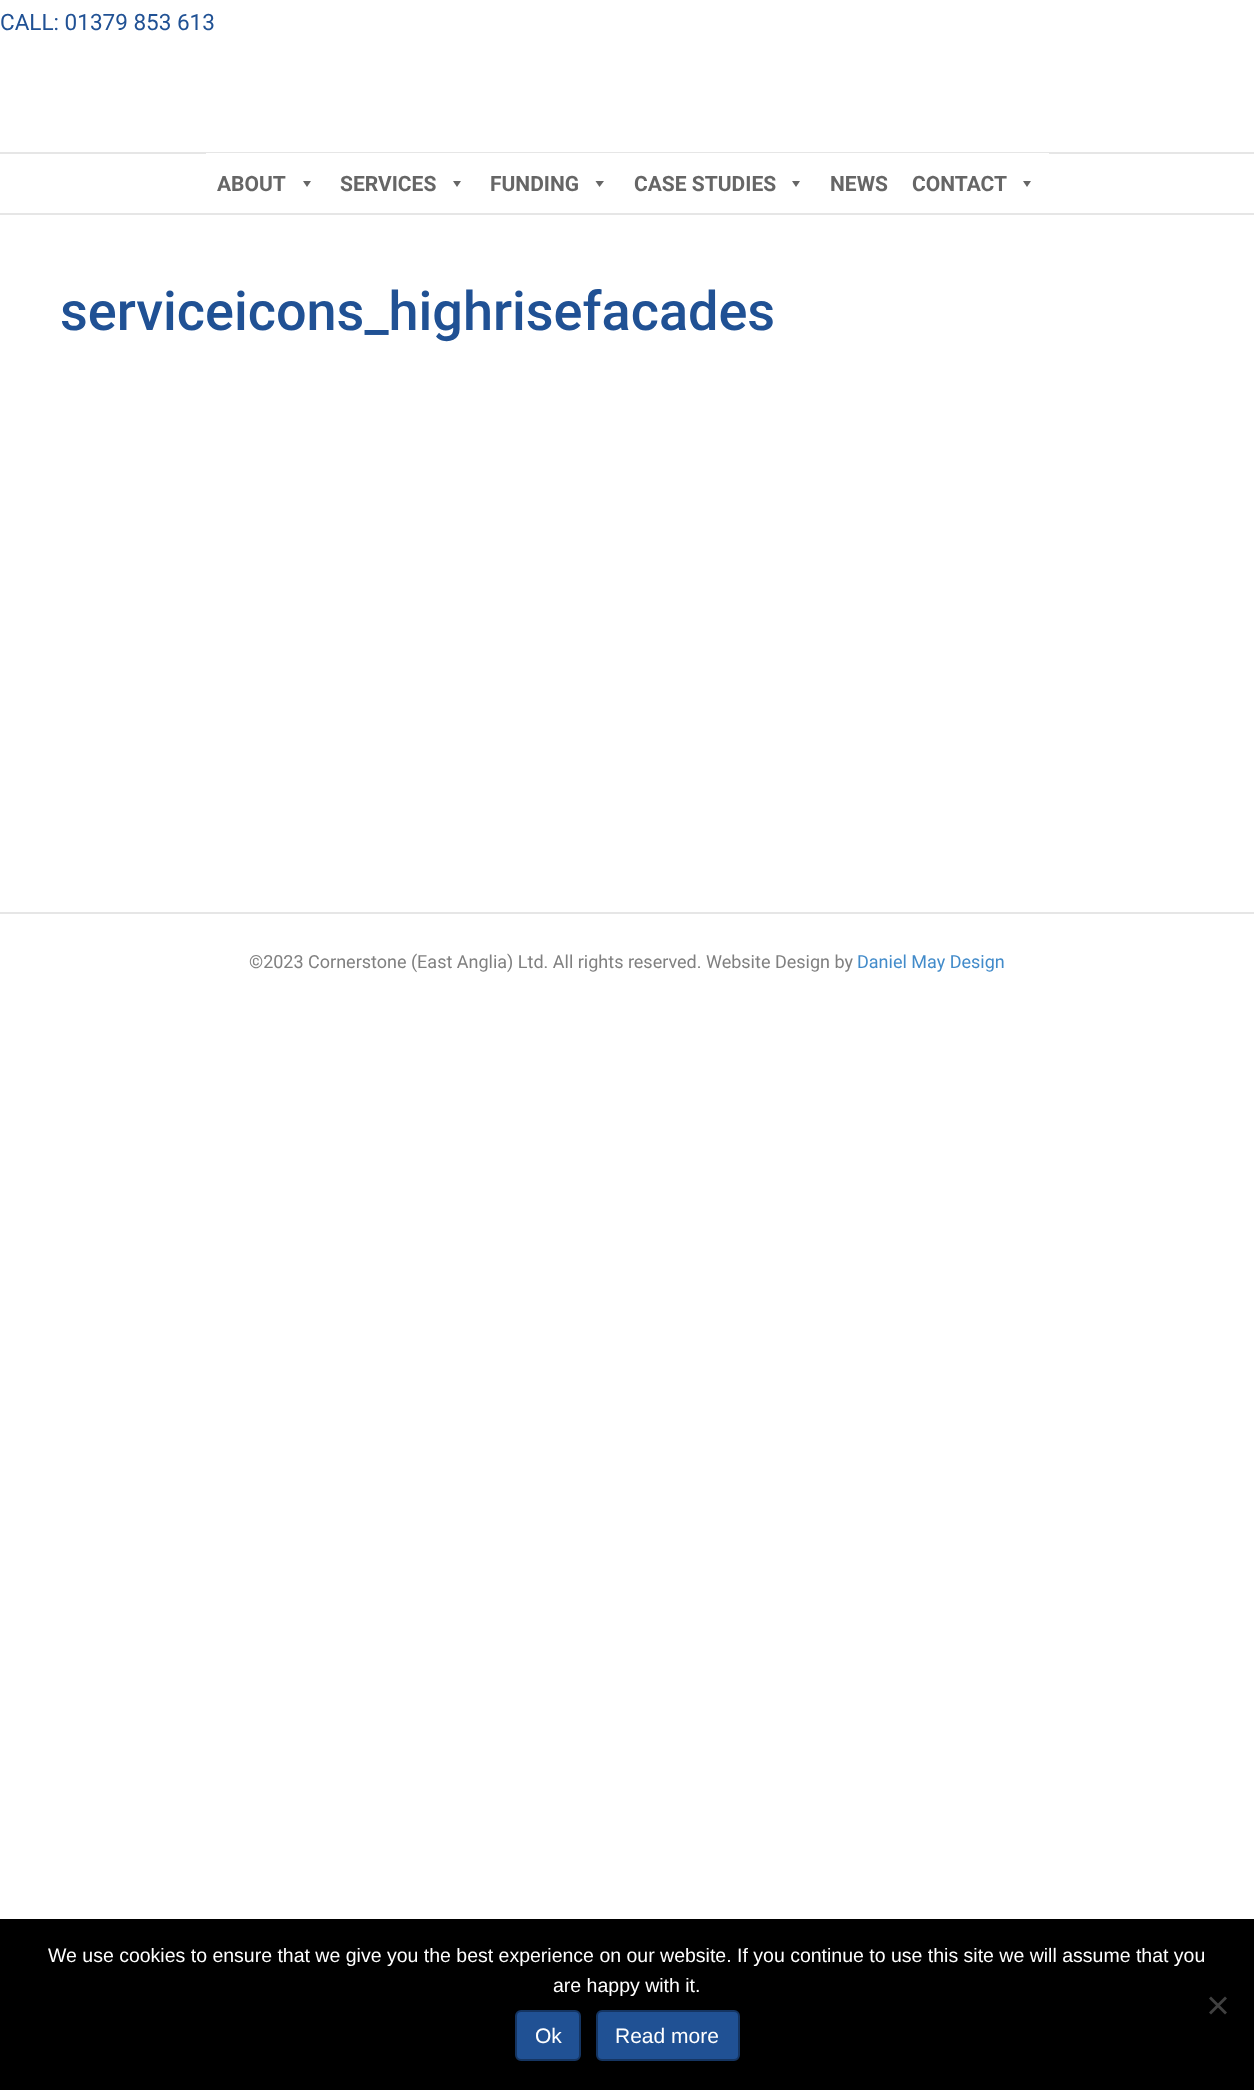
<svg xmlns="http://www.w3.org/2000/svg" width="1254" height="2090">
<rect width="100%" height="100%" fill="#fff"/>
<text x="0" y="30" style="font-family:Roboto;font-size:22.5px;fill:#205194">CALL: 01379 853 613</text>
<rect y="152" width="1254" height="2" fill="#e6e6e6"/>
<rect y="213" width="1254" height="2" fill="#e6e6e6"/>
<rect x="206" y="153" width="843" height="1" fill="#fff"/>
<text x="217" y="191" style="font-family:Roboto;font-size:21px;font-weight:bold;fill:#666">ABOUT</text>
<path d="M311 181l-4 6l-4-6z" fill="#666"/>
<text x="340" y="191" style="font-family:Roboto;font-size:21px;font-weight:bold;fill:#666">SERVICES</text>
<path d="M461 181l-4 6l-4-6z" fill="#666"/>
<text x="490" y="191" style="font-family:Roboto;font-size:21px;font-weight:bold;fill:#666">FUNDING</text>
<path d="M604 181l-4.5 6l-4-6z" fill="#666"/>
<text x="634" y="191" style="font-family:Roboto;font-size:21px;font-weight:bold;fill:#666">CASE STUDIES</text>
<path d="M800 181l-4 6l-4-6z" fill="#666"/>
<text x="830" y="191" style="font-family:Roboto;font-size:21px;font-weight:bold;fill:#666">NEWS</text>
<text x="912" y="191" style="font-family:Roboto;font-size:21px;font-weight:bold;fill:#666">CONTACT</text>
<path d="M1031 181l-4 6l-4-6z" fill="#666"/>
<text x="60" y="330" style="font-family:Roboto;font-size:54px;font-weight:500;fill:#205194">serviceicons_highrisefacades</text>
<rect y="912" width="1254" height="2" fill="#e6e6e6"/>
<text x="249" y="968" style="font-family:Roboto;font-size:18px;fill:#808080">©2023 Cornerstone (East Anglia) Ltd. All rights reserved. Website Design by</text>
<text x="857" y="968" style="font-family:Roboto;font-size:18px;fill:#428bca">Daniel May Design</text>
<rect y="1919" width="1254" height="171" fill="#000"/>
<text x="48" y="1962" style="font-family:Liberation Sans;font-size:19.5px;fill:#fff">We use cookies to ensure that we give you the best experience on our website. If you continue to use this site we will assume that you</text>
<text x="553" y="1992" style="font-family:Liberation Sans;font-size:19.5px;fill:#fff">are happy with it.</text>
<path d="M1225 1996.5l2 2l-16 16l-2-2z" fill="#404040"/>
<path d="M1209 1998.5l2-2l16 16l-2 2z" fill="#404040"/>
<rect x="516" y="2011" width="64" height="49" rx="5" fill="#205194" stroke="#153562" stroke-width="2"/>
<text x="535" y="2043" style="font-family:Liberation Sans;font-size:21px;fill:#fff">Ok</text>
<rect x="597" y="2011" width="142" height="49" rx="5" fill="#205194" stroke="#153562" stroke-width="2"/>
<text x="615" y="2043" style="font-family:Liberation Sans;font-size:21px;fill:#fff">Read more</text>
</svg>
